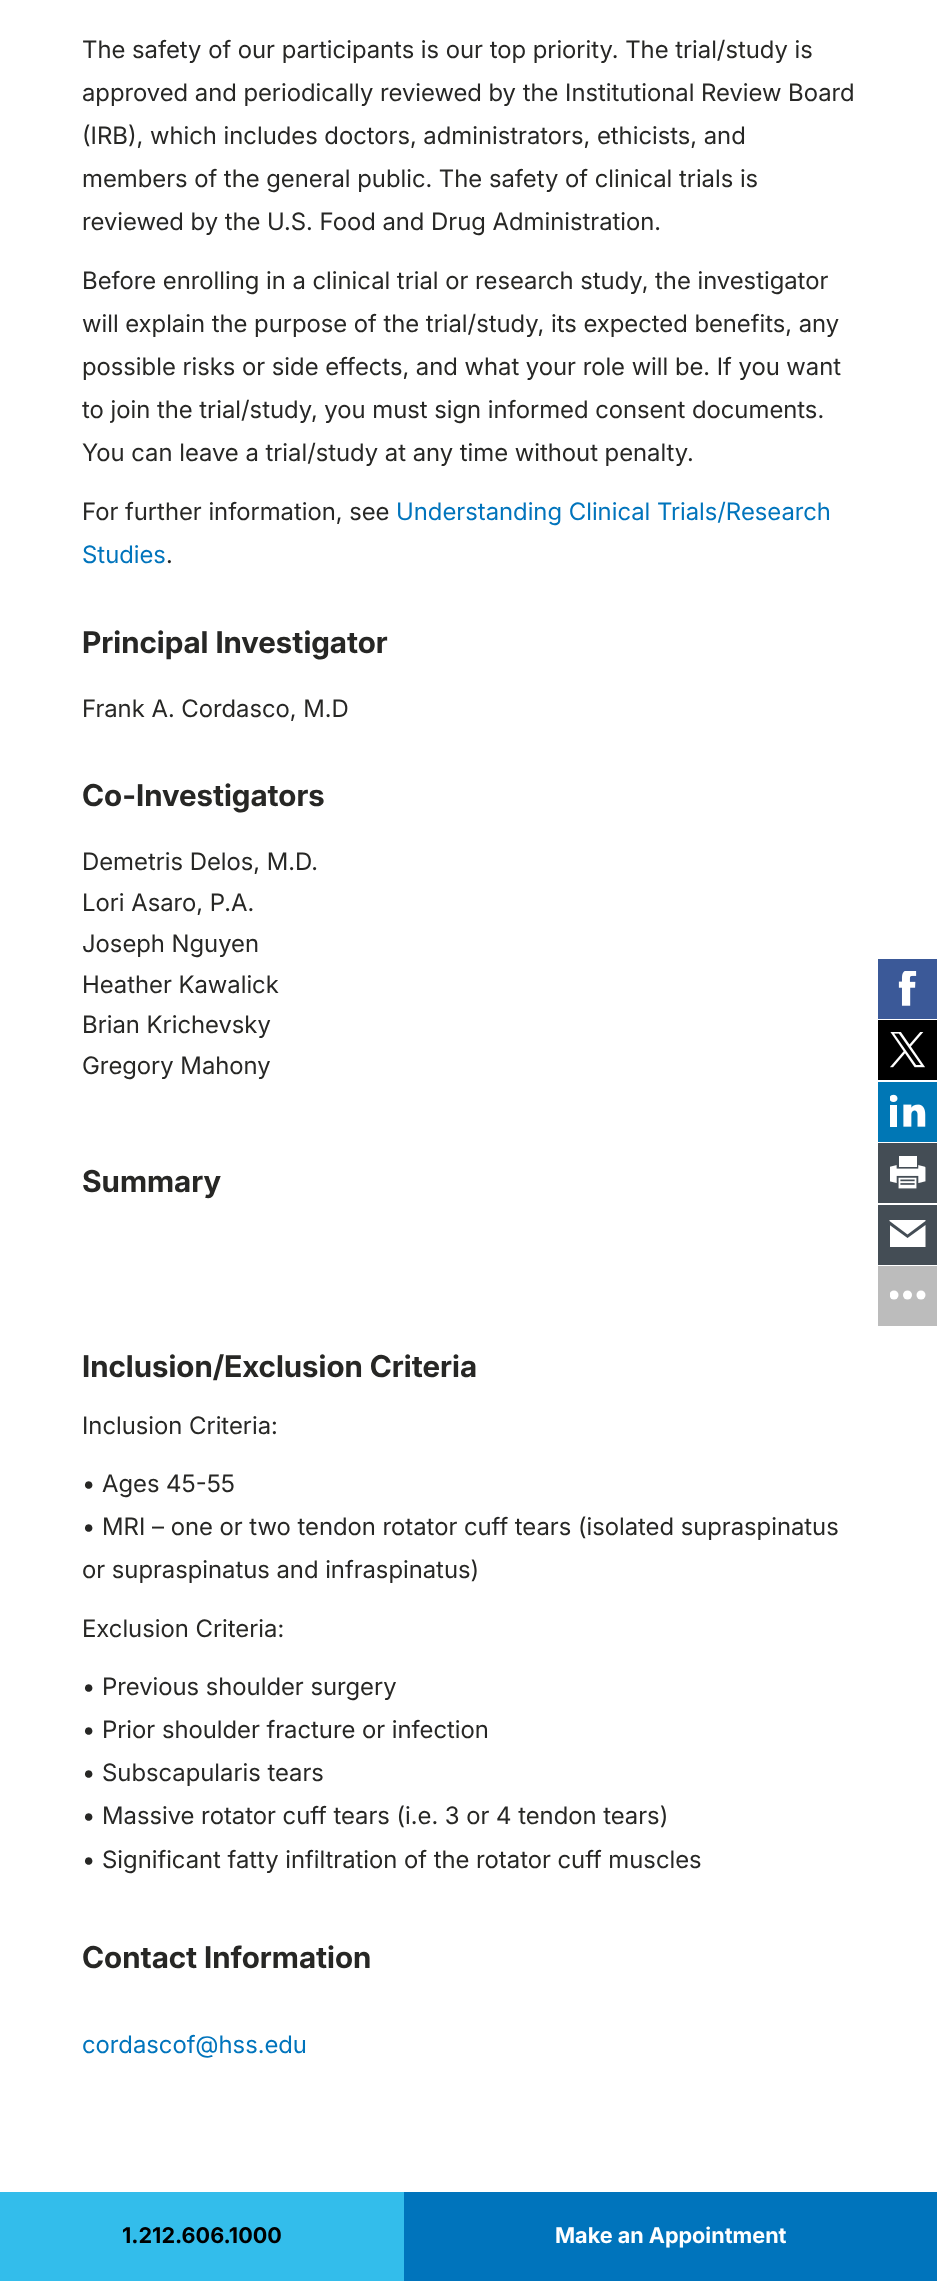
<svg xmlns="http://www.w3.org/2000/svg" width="937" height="2281">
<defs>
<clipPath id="clip1"><rect x="890" y="1217" width="36" height="36"/></clipPath>
<clipPath id="clip2"><rect x="890" y="1278" width="36" height="36"/></clipPath>
</defs>
<rect width="100%" height="100%" fill="#fff"/>
<text x="82" y="58" style="font-family:Inter;font-size:24px;fill:#272725">The safety of our participants is our top priority. The trial/study is</text>
<text x="82" y="101" style="font-family:Inter;font-size:24px;fill:#272725">approved and periodically reviewed by the Institutional Review Board</text>
<text x="82" y="144" style="font-family:Inter;font-size:24px;fill:#272725">(IRB), which includes doctors, administrators, ethicists, and</text>
<text x="82" y="187" style="font-family:Inter;font-size:24px;fill:#272725">members of the general public. The safety of clinical trials is</text>
<text x="82" y="230" style="font-family:Inter;font-size:24px;fill:#272725">reviewed by the U.S. Food and Drug Administration.</text>
<text x="82" y="289" style="font-family:Inter;font-size:24px;fill:#272725">Before enrolling in a clinical trial or research study, the investigator</text>
<text x="82" y="332" style="font-family:Inter;font-size:24px;fill:#272725">will explain the purpose of the trial/study, its expected benefits, any</text>
<text x="82" y="375" style="font-family:Inter;font-size:24px;fill:#272725">possible risks or side effects, and what your role will be. If you want</text>
<text x="82" y="418" style="font-family:Inter;font-size:24px;fill:#272725">to join the trial/study, you must sign informed consent documents.</text>
<text x="82" y="461" style="font-family:Inter;font-size:24px;fill:#272725">You can leave a trial/study at any time without penalty.</text>
<text x="82" y="520" style="font-family:Inter;font-size:24px;fill:#272725">For further information, see</text>
<text x="396" y="520" style="font-family:Inter;font-size:24px;fill:#0074bc">Understanding Clinical Trials/Research</text>
<text x="82" y="563" style="font-family:Inter;font-size:24px;fill:#0074bc">Studies</text>
<text x="166" y="563" style="font-family:Inter;font-size:24px;fill:#272725">.</text>
<text x="82" y="653" style="font-family:Inter;font-size:30px;font-weight:bold;fill:#272725">Principal Investigator</text>
<text x="82" y="717" style="font-family:Inter;font-size:24px;fill:#272725">Frank A. Cordasco, M.D</text>
<text x="82" y="806" style="font-family:Inter;font-size:30px;font-weight:bold;fill:#272725">Co-Investigators</text>
<text x="82" y="870" style="font-family:Inter;font-size:24px;fill:#272725">Demetris Delos, M.D.</text>
<text x="82" y="911" style="font-family:Inter;font-size:24px;fill:#272725">Lori Asaro, P.A.</text>
<text x="82" y="952" style="font-family:Inter;font-size:24px;fill:#272725">Joseph Nguyen</text>
<text x="82" y="993" style="font-family:Inter;font-size:24px;fill:#272725">Heather Kawalick</text>
<text x="82" y="1033" style="font-family:Inter;font-size:24px;fill:#272725">Brian Krichevsky</text>
<text x="82" y="1074" style="font-family:Inter;font-size:24px;fill:#272725">Gregory Mahony</text>
<text x="82" y="1192" style="font-family:Inter;font-size:30px;font-weight:bold;fill:#272725">Summary</text>
<text x="82" y="1377" style="font-family:Inter;font-size:30px;font-weight:bold;fill:#272725">Inclusion/Exclusion Criteria</text>
<text x="82" y="1434" style="font-family:Inter;font-size:24px;fill:#272725">Inclusion Criteria:</text>
<text x="82" y="1492" style="font-family:Inter;font-size:24px;fill:#272725">• Ages 45-55</text>
<text x="82" y="1535" style="font-family:Inter;font-size:24px;fill:#272725">• MRI – one or two tendon rotator cuff tears (isolated supraspinatus</text>
<text x="82" y="1578" style="font-family:Inter;font-size:24px;fill:#272725">or supraspinatus and infraspinatus)</text>
<text x="82" y="1637" style="font-family:Inter;font-size:24px;fill:#272725">Exclusion Criteria:</text>
<text x="82" y="1695" style="font-family:Inter;font-size:24px;fill:#272725">• Previous shoulder surgery</text>
<text x="82" y="1738" style="font-family:Inter;font-size:24px;fill:#272725">• Prior shoulder fracture or infection</text>
<text x="82" y="1781" style="font-family:Inter;font-size:24px;fill:#272725">• Subscapularis tears</text>
<text x="82" y="1824" style="font-family:Inter;font-size:24px;fill:#272725">• Massive rotator cuff tears (i.e. 3 or 4 tendon tears)</text>
<text x="82" y="1868" style="font-family:Inter;font-size:24px;fill:#272725">• Significant fatty infiltration of the rotator cuff muscles</text>
<text x="82" y="1968" style="font-family:Inter;font-size:30px;font-weight:bold;fill:#272725">Contact Information</text>
<text x="82" y="2053" style="font-family:Inter;font-size:24px;fill:#0074bc">cordascof@hss.edu</text>
<rect x="878" y="959" width="59" height="60" fill="#3b5998"/>
<image x="898" y="971" width="19" height="35" href="media/1.png"/>
<rect x="878" y="1020" width="59" height="60" fill="#000"/>
<image x="890" y="1032" width="35" height="36" href="media/2.png"/>
<rect x="878" y="1082" width="59" height="60" fill="#0077b5"/>
<image x="890" y="1094" width="36" height="33" href="media/3.png"/>
<rect x="878" y="1143" width="59" height="60" fill="#444d55"/>
<image x="890" y="1156" width="36" height="33" href="media/4.png"/>
<rect x="878" y="1205" width="59" height="60" fill="#444d55"/>
<g clip-path="url(#clip1)">
<path d="M907.5 1238l-18-13v22h36v-22z" fill="#fff"/>
</g>
<path d="M907.5 1234.5l18-13.5v-1h-36v1z" fill="#fff"/>
<rect x="878" y="1266" width="59" height="60" fill="#bcbcbc"/>
<g clip-path="url(#clip2)">
<circle cx="894" cy="1295" r="4.5" fill="#fff"/>
</g>
<circle cx="907.5" cy="1295" r="4.5" fill="#fff"/>
<circle cx="921" cy="1295" r="4.5" fill="#fff"/>
<rect y="2192" width="404" height="89" fill="#33bdeb"/>
<text x="122" y="2243" style="font-family:'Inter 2';font-size:21.6px;font-weight:bold;fill:#000">1.212.606.1000</text>
<rect x="404" y="2192" width="533" height="89" fill="#0074bc"/>
<text x="555" y="2243" style="font-family:'Inter 2';font-size:21.6px;font-weight:bold;fill:#fff">Make an Appointment</text>
</svg>
